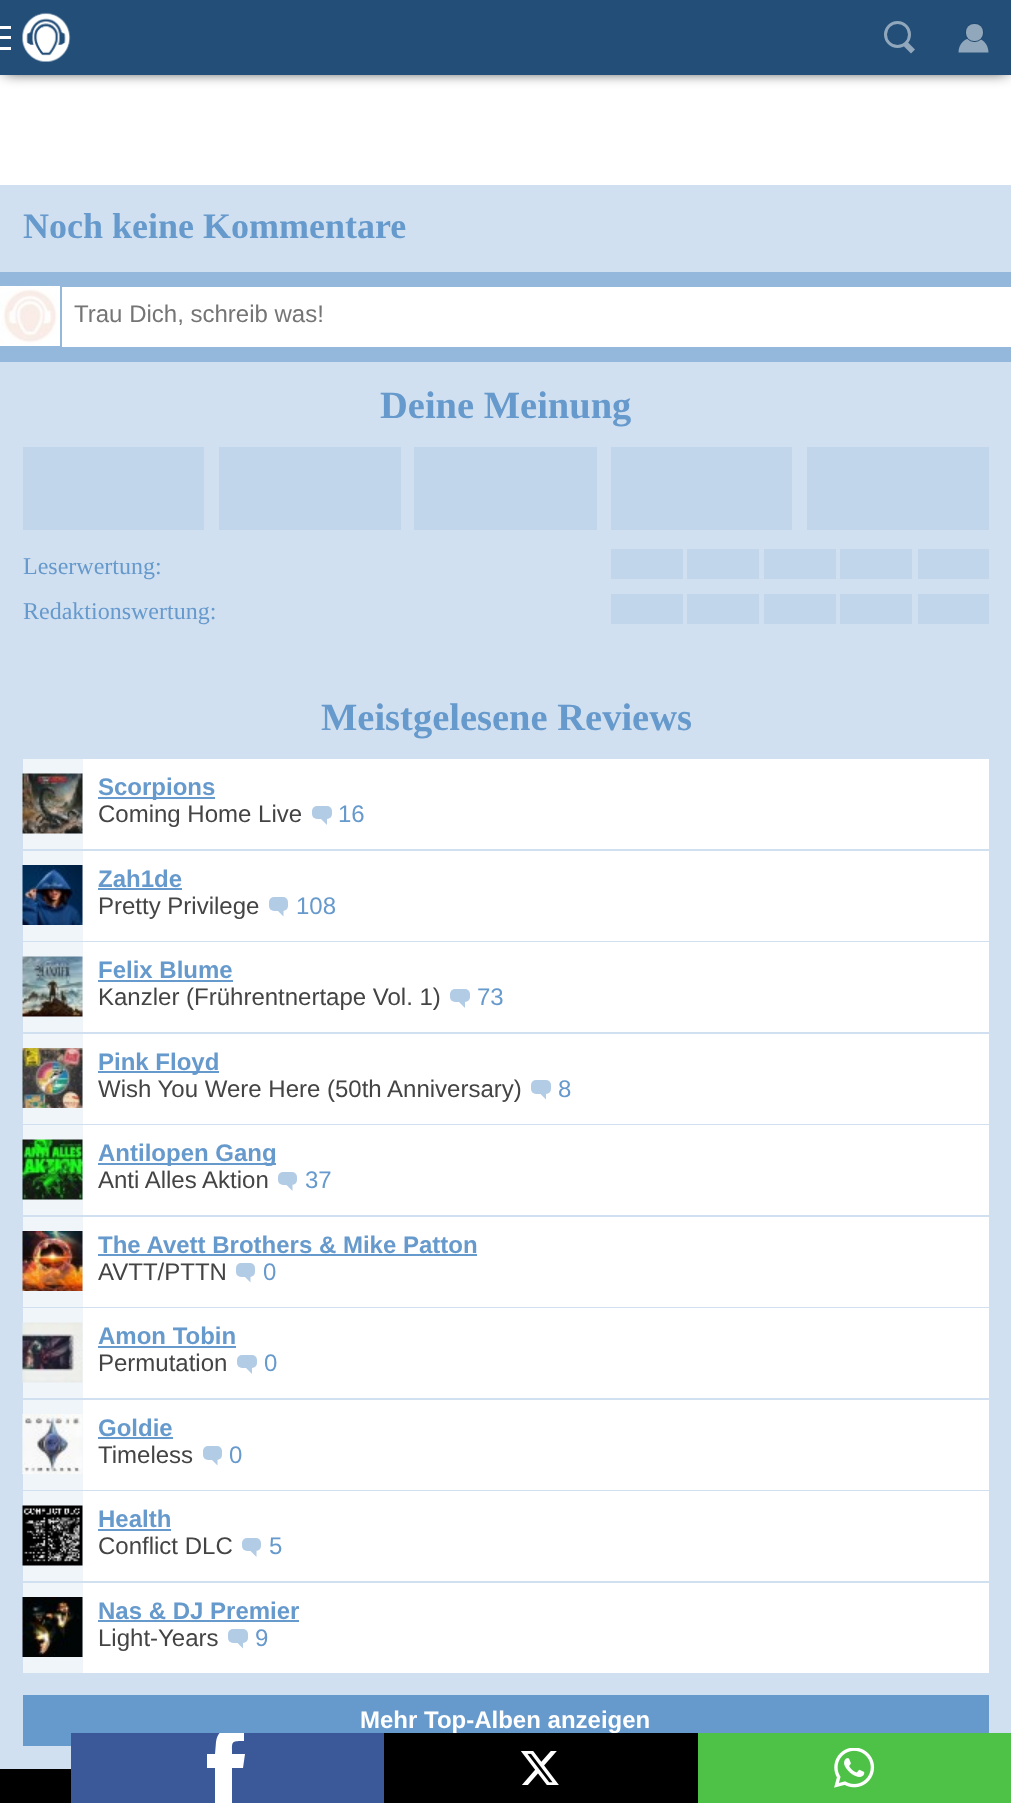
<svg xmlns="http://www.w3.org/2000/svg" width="1011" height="1803">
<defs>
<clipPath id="clip1"><rect x="98" y="1217" width="379" height="90"/></clipPath>
<clipPath id="clip2"><rect x="177" y="1733" width="101" height="70"/></clipPath>
</defs>
<rect width="100%" height="100%" fill="#d1e0f0"/>
<rect y="75" width="1011" height="110" fill="#fff"/>
<rect x="5" y="5" width="1002" height="66" fill="#000" filter="blur(7.5px)"/>
<rect width="1011" height="75" fill="#234e78"/>
<image x="22" y="12" width="49" height="50" href="media/1.png"/>
<rect y="26" width="11" height="3" fill="#fff"/>
<rect y="47" width="11" height="3" fill="#fff"/>
<rect y="36" width="11" height="3" fill="#fff"/>
<path d="M915 49.5l-4 4l-8.5-8.5l4-4z" fill="#91a7bc"/>
<circle cx="897.5" cy="34.5" r="12" fill="none" stroke="#91a7bc" stroke-width="3"/>
<path d="M973.5 37.5c8.5 0 15 6.5 15 15h-30c0-8.5 6.5-15 15-15zm0 15z" fill="#91a7bc" fill-rule="evenodd"/>
<rect x="966" y="24" width="17" height="17" rx="8" fill="none" stroke="#20486e" stroke-width="2"/>
<rect x="966" y="24" width="17" height="17" rx="8" fill="#91a7bc"/>
<text x="23" y="238" style="font-family:Liberation Serif;font-size:36px;font-weight:bold;fill:#69c">Noch keine Kommentare</text>
<rect y="272" width="1011" height="90" fill="#94b8db"/>
<image x="0" y="286" width="60" height="60" href="media/2.png"/>
<rect x="62" y="287" width="949" height="60" fill="#fff"/>
<text x="74" y="322" style="font-family:Liberation Sans;font-size:24px;fill:#757575">Trau Dich, schreib was!</text>
<text x="380" y="418" style="font-family:Liberation Serif;font-size:38.5px;font-weight:bold;fill:#69c">Deine Meinung</text>
<rect x="23" y="447" width="181" height="83" fill="#c2d6eb"/>
<rect x="219" y="447" width="182" height="83" fill="#c2d6eb"/>
<rect x="414" y="447" width="183" height="83" fill="#c2d6eb"/>
<rect x="611" y="447" width="181" height="83" fill="#c2d6eb"/>
<rect x="807" y="447" width="182" height="83" fill="#c2d6eb"/>
<text x="23" y="574" style="font-family:Liberation Serif;font-size:24px;fill:#69c">Leserwertung:</text>
<rect x="611" y="549" width="72" height="30" fill="#c2d6eb"/>
<rect x="687" y="549" width="72" height="30" fill="#c2d6eb"/>
<rect x="764" y="549" width="72" height="30" fill="#c2d6eb"/>
<rect x="840" y="549" width="72" height="30" fill="#c2d6eb"/>
<rect x="918" y="549" width="71" height="30" fill="#c2d6eb"/>
<text x="23" y="619" style="font-family:Liberation Serif;font-size:24px;fill:#69c">Redaktionswertung:</text>
<rect x="611" y="594" width="72" height="30" fill="#c2d6eb"/>
<rect x="687" y="594" width="72" height="30" fill="#c2d6eb"/>
<rect x="764" y="594" width="72" height="30" fill="#c2d6eb"/>
<rect x="840" y="594" width="72" height="30" fill="#c2d6eb"/>
<rect x="918" y="594" width="71" height="30" fill="#c2d6eb"/>
<text x="321" y="730" style="font-family:Liberation Serif;font-size:38.5px;font-weight:bold;fill:#69c">Meistgelesene Reviews</text>
<rect x="83" y="759" width="906" height="90" fill="#fff"/>
<rect x="23" y="759" width="60" height="90" fill="#f0f5fa"/>
<image x="22" y="773" width="61" height="61" href="media/3.png"/>
<rect x="98" y="797" width="117" height="2" fill="#69c"/>
<text x="98" y="795" style="font-family:Liberation Sans;font-size:24px;font-weight:bold;fill:#69c">Scorpions</text>
<text x="98" y="822" style="font-family:Liberation Sans;font-size:24px;fill:#444">Coming Home Live</text>
<rect x="312" y="806" width="20" height="13" rx="5" fill="#b3cce6"/>
<text x="338" y="822" style="font-family:Liberation Sans;font-size:24px;fill:#69c">16</text>
<path d="M327 819v6l-6-6z" fill="#b3cce6"/>
<rect x="83" y="851" width="906" height="90" fill="#fff"/>
<rect x="23" y="851" width="60" height="90" fill="#f0f5fa"/>
<image x="22" y="865" width="61" height="60" href="media/4.png"/>
<text x="98" y="887" style="font-family:Liberation Sans;font-size:24px;font-weight:bold;fill:#69c">Zah1de</text>
<rect x="98" y="888" width="84" height="2" fill="#69c"/>
<text x="98" y="914" style="font-family:Liberation Sans;font-size:24px;fill:#444">Pretty Privilege</text>
<rect x="269" y="897" width="19" height="14" rx="5" fill="#b3cce6"/>
<text x="296" y="914" style="font-family:Liberation Sans;font-size:24px;fill:#69c">108</text>
<path d="M283.5 910.5v6l-6-6z" fill="#b3cce6"/>
<rect x="83" y="942" width="906" height="90" fill="#fff"/>
<rect x="23" y="942" width="60" height="90" fill="#f0f5fa"/>
<image x="22" y="956" width="61" height="61" href="media/5.png"/>
<text x="98" y="978" style="font-family:Liberation Sans;font-size:24px;font-weight:bold;fill:#69c">Felix Blume</text>
<rect x="98" y="980" width="135" height="2" fill="#69c"/>
<text x="98" y="1005" style="font-family:Liberation Sans;font-size:24px;fill:#444">Kanzler (Frührentnertape Vol. 1)</text>
<rect x="450" y="989" width="20" height="13" rx="5" fill="#b3cce6"/>
<text x="477" y="1005" style="font-family:Liberation Sans;font-size:24px;fill:#69c">73</text>
<path d="M465 1002v6l-6-6z" fill="#b3cce6"/>
<rect x="83" y="1034" width="906" height="90" fill="#fff"/>
<rect x="23" y="1034" width="60" height="90" fill="#f0f5fa"/>
<image x="22" y="1048" width="61" height="60" href="media/6.png"/>
<rect x="98" y="1071" width="121" height="2" fill="#69c"/>
<text x="98" y="1070" style="font-family:Liberation Sans;font-size:24px;font-weight:bold;fill:#69c">Pink Floyd</text>
<text x="98" y="1097" style="font-family:Liberation Sans;font-size:24px;fill:#444">Wish You Were Here (50th Anniversary)</text>
<rect x="531" y="1080" width="20" height="14" rx="5" fill="#b3cce6"/>
<text x="558" y="1097" style="font-family:Liberation Sans;font-size:24px;fill:#69c">8</text>
<path d="M546 1093.5v6l-6-6z" fill="#b3cce6"/>
<rect x="83" y="1125" width="906" height="90" fill="#fff"/>
<rect x="23" y="1125" width="60" height="90" fill="#f0f5fa"/>
<image x="22" y="1139" width="61" height="61" href="media/7.png"/>
<rect x="98" y="1163" width="178" height="2" fill="#69c"/>
<text x="98" y="1161" style="font-family:Liberation Sans;font-size:24px;font-weight:bold;fill:#69c">Antilopen Gang</text>
<text x="98" y="1188" style="font-family:Liberation Sans;font-size:24px;fill:#444">Anti Alles Aktion</text>
<rect x="278" y="1172" width="19" height="13" rx="5" fill="#b3cce6"/>
<text x="305" y="1188" style="font-family:Liberation Sans;font-size:24px;fill:#69c">37</text>
<path d="M292.5 1185v6l-6-6z" fill="#b3cce6"/>
<rect x="83" y="1217" width="906" height="90" fill="#fff"/>
<rect x="23" y="1217" width="60" height="90" fill="#f0f5fa"/>
<image x="22" y="1231" width="61" height="60" href="media/8.png"/>
<g clip-path="url(#clip1)">
<text x="98" y="1253" style="font-family:Liberation Sans;font-size:24px;font-weight:bold;fill:#69c">The Avett Brothers &amp; Mike Patton</text>
</g>
<rect x="98" y="1254" width="379" height="2" fill="#69c"/>
<text x="98" y="1280" style="font-family:Liberation Sans;font-size:24px;fill:#444">AVTT/PTTN</text>
<rect x="236" y="1263" width="19" height="14" rx="5" fill="#b3cce6"/>
<text x="263" y="1280" style="font-family:Liberation Sans;font-size:24px;fill:#69c">0</text>
<path d="M250.5 1276.5v6l-6-6z" fill="#b3cce6"/>
<rect x="83" y="1308" width="906" height="90" fill="#fff"/>
<rect x="23" y="1308" width="60" height="90" fill="#f0f5fa"/>
<image x="22" y="1322" width="61" height="61" href="media/9.png"/>
<text x="98" y="1344" style="font-family:Liberation Sans;font-size:24px;font-weight:bold;fill:#69c">Amon Tobin</text>
<rect x="98" y="1346" width="138" height="2" fill="#69c"/>
<text x="98" y="1371" style="font-family:Liberation Sans;font-size:24px;fill:#444">Permutation</text>
<rect x="237" y="1355" width="20" height="13" rx="5" fill="#b3cce6"/>
<text x="264" y="1371" style="font-family:Liberation Sans;font-size:24px;fill:#69c">0</text>
<path d="M252 1368v6l-6-6z" fill="#b3cce6"/>
<rect x="83" y="1400" width="906" height="90" fill="#fff"/>
<rect x="23" y="1400" width="60" height="90" fill="#f0f5fa"/>
<image x="22" y="1414" width="61" height="60" href="media/10.png"/>
<text x="98" y="1436" style="font-family:Liberation Sans;font-size:24px;font-weight:bold;fill:#69c">Goldie</text>
<rect x="98" y="1437" width="75" height="2" fill="#69c"/>
<text x="98" y="1463" style="font-family:Liberation Sans;font-size:24px;fill:#444">Timeless</text>
<rect x="203" y="1446" width="19" height="14" rx="5" fill="#b3cce6"/>
<text x="229" y="1463" style="font-family:Liberation Sans;font-size:24px;fill:#69c">0</text>
<path d="M217.5 1459.5v6l-6-6z" fill="#b3cce6"/>
<rect x="83" y="1491" width="906" height="90" fill="#fff"/>
<rect x="23" y="1491" width="60" height="90" fill="#f0f5fa"/>
<image x="22" y="1505" width="61" height="61" href="media/11.png"/>
<text x="98" y="1527" style="font-family:Liberation Sans;font-size:24px;font-weight:bold;fill:#69c">Health</text>
<rect x="98" y="1529" width="73" height="2" fill="#69c"/>
<text x="98" y="1554" style="font-family:Liberation Sans;font-size:24px;fill:#444">Conflict DLC</text>
<rect x="242" y="1538" width="19" height="13" rx="5" fill="#b3cce6"/>
<text x="269" y="1554" style="font-family:Liberation Sans;font-size:24px;fill:#69c">5</text>
<path d="M256.5 1551v6l-6-6z" fill="#b3cce6"/>
<rect x="83" y="1583" width="906" height="90" fill="#fff"/>
<rect x="23" y="1583" width="60" height="90" fill="#f0f5fa"/>
<image x="22" y="1597" width="61" height="60" href="media/12.png"/>
<text x="98" y="1619" style="font-family:Liberation Sans;font-size:24px;font-weight:bold;fill:#69c">Nas &amp; DJ Premier</text>
<rect x="98" y="1620" width="201" height="2" fill="#69c"/>
<text x="98" y="1646" style="font-family:Liberation Sans;font-size:24px;fill:#444">Light-Years</text>
<rect x="228" y="1629" width="20" height="14" rx="5" fill="#b3cce6"/>
<text x="255" y="1646" style="font-family:Liberation Sans;font-size:24px;fill:#69c">9</text>
<path d="M243 1642.5v6l-6-6z" fill="#b3cce6"/>
<rect x="23" y="1695" width="966" height="51" fill="#69c"/>
<text x="360" y="1728" style="font-family:Liberation Sans;font-size:24px;font-weight:bold;fill:#fff">Mehr Top-Alben anzeigen</text>
<rect x="71" y="1733" width="313" height="70" fill="#3b5998"/>
<g clip-path="url(#clip2)">
<path d="M232 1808v-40h11l2-14h-13c0-13-1-13 12-13v-13c-12 0-26-2-28 14l-1 12h-8v14h8v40z" fill="#fff" fill-rule="evenodd"/>
</g>
<rect x="384" y="1733" width="314" height="70" fill="#000"/>
<image x="521" y="1751" width="38" height="34" href="media/13.png"/>
<rect x="698" y="1733" width="313" height="70" fill="#4dc247"/>
<image x="834" y="1748" width="41" height="40" href="media/14.png"/>
<rect y="1769" width="71" height="34" fill="#000"/>
</svg>
